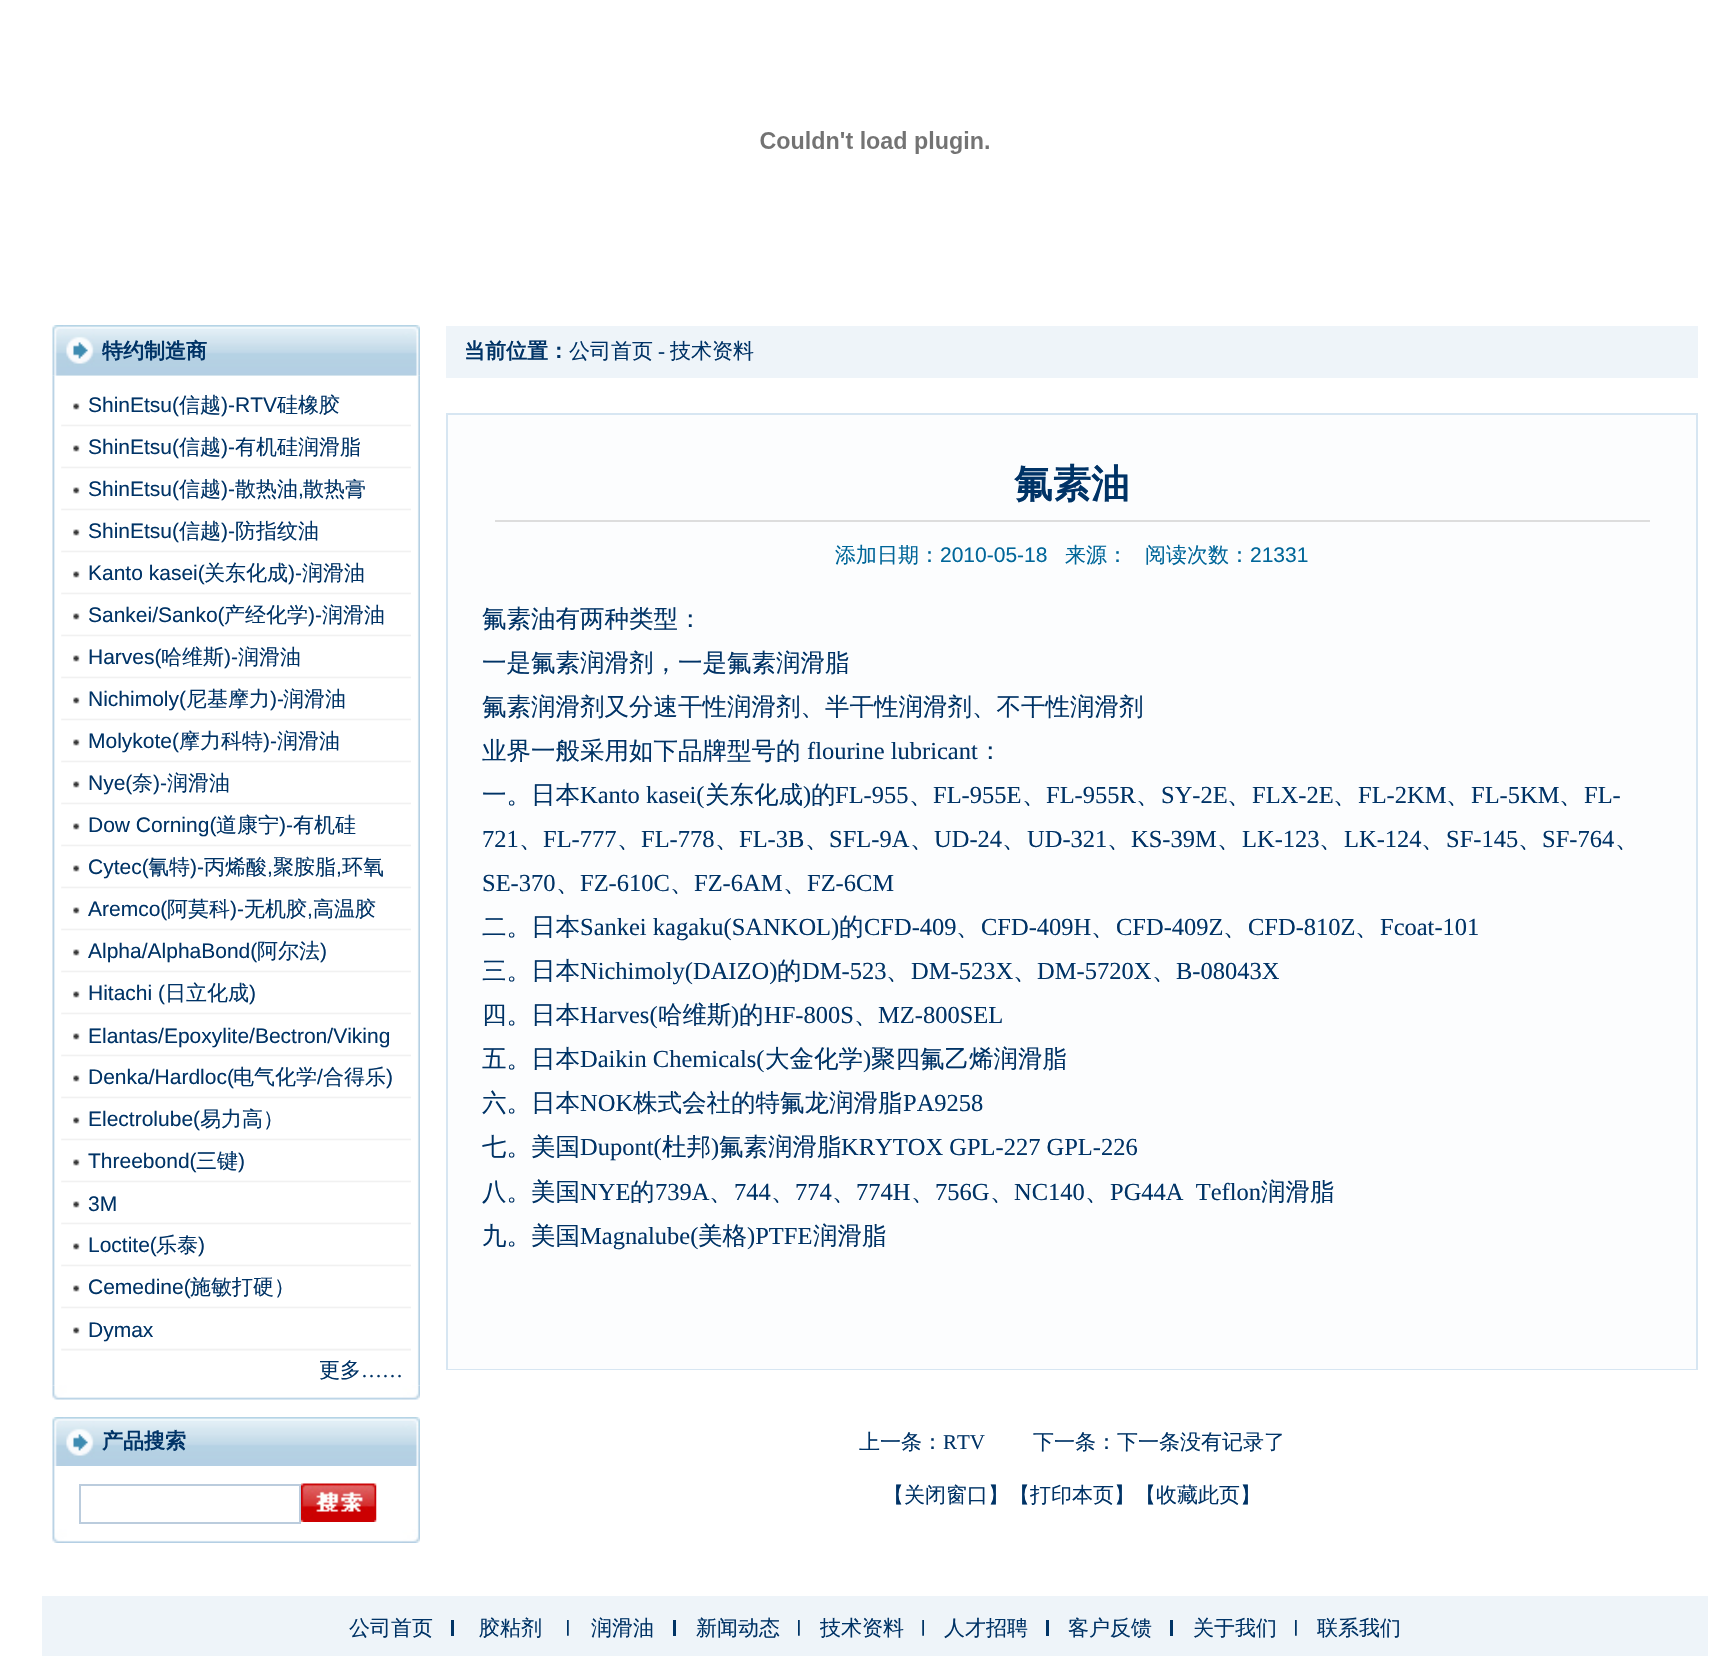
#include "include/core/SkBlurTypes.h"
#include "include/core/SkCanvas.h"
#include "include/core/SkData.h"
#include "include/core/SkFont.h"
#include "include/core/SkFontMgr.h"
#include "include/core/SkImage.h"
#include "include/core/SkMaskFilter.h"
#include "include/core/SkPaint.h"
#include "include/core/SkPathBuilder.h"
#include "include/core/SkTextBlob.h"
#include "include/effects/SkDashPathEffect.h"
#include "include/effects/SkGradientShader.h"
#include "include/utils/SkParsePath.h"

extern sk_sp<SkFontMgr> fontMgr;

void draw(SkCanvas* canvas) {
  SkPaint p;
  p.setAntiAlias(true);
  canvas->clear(SK_ColorWHITE);
  canvas->drawImageRect(SkImages::DeferredFromEncodedData(SkData::MakeFromFileName("images/1.png")), SkRect::MakeLTRB(760, 131, 989, 154), SkSamplingOptions());
  canvas->drawImageRect(SkImages::DeferredFromEncodedData(SkData::MakeFromFileName("images/2.png")), SkRect::MakeLTRB(52, 325, 420, 376), SkSamplingOptions());
  canvas->drawImageRect(SkImages::DeferredFromEncodedData(SkData::MakeFromFileName("images/3.png")), SkRect::MakeLTRB(52, 375, 420, 1386), SkSamplingOptions());
  canvas->drawImageRect(SkImages::DeferredFromEncodedData(SkData::MakeFromFileName("images/4.png")), SkRect::MakeLTRB(61, 403, 411, 427), SkSamplingOptions());
  canvas->drawImageRect(SkImages::DeferredFromEncodedData(SkData::MakeFromFileName("images/5.png")), SkRect::MakeLTRB(61, 426, 411, 469), SkSamplingOptions());
  canvas->drawImageRect(SkImages::DeferredFromEncodedData(SkData::MakeFromFileName("images/5.png")), SkRect::MakeLTRB(61, 468, 411, 511), SkSamplingOptions());
  canvas->drawImageRect(SkImages::DeferredFromEncodedData(SkData::MakeFromFileName("images/5.png")), SkRect::MakeLTRB(61, 510, 411, 553), SkSamplingOptions());
  canvas->drawImageRect(SkImages::DeferredFromEncodedData(SkData::MakeFromFileName("images/5.png")), SkRect::MakeLTRB(61, 552, 411, 595), SkSamplingOptions());
  canvas->drawImageRect(SkImages::DeferredFromEncodedData(SkData::MakeFromFileName("images/5.png")), SkRect::MakeLTRB(61, 594, 411, 637), SkSamplingOptions());
  canvas->drawImageRect(SkImages::DeferredFromEncodedData(SkData::MakeFromFileName("images/5.png")), SkRect::MakeLTRB(61, 636, 411, 679), SkSamplingOptions());
  canvas->drawImageRect(SkImages::DeferredFromEncodedData(SkData::MakeFromFileName("images/5.png")), SkRect::MakeLTRB(61, 678, 411, 721), SkSamplingOptions());
  canvas->drawImageRect(SkImages::DeferredFromEncodedData(SkData::MakeFromFileName("images/5.png")), SkRect::MakeLTRB(61, 720, 411, 763), SkSamplingOptions());
  canvas->drawImageRect(SkImages::DeferredFromEncodedData(SkData::MakeFromFileName("images/5.png")), SkRect::MakeLTRB(61, 762, 411, 805), SkSamplingOptions());
  canvas->drawImageRect(SkImages::DeferredFromEncodedData(SkData::MakeFromFileName("images/5.png")), SkRect::MakeLTRB(61, 804, 411, 847), SkSamplingOptions());
  canvas->drawImageRect(SkImages::DeferredFromEncodedData(SkData::MakeFromFileName("images/5.png")), SkRect::MakeLTRB(61, 846, 411, 889), SkSamplingOptions());
  canvas->drawImageRect(SkImages::DeferredFromEncodedData(SkData::MakeFromFileName("images/5.png")), SkRect::MakeLTRB(61, 888, 411, 931), SkSamplingOptions());
  canvas->drawImageRect(SkImages::DeferredFromEncodedData(SkData::MakeFromFileName("images/5.png")), SkRect::MakeLTRB(61, 930, 411, 973), SkSamplingOptions());
  canvas->drawImageRect(SkImages::DeferredFromEncodedData(SkData::MakeFromFileName("images/5.png")), SkRect::MakeLTRB(61, 972, 411, 1015), SkSamplingOptions());
  canvas->drawImageRect(SkImages::DeferredFromEncodedData(SkData::MakeFromFileName("images/5.png")), SkRect::MakeLTRB(61, 1014, 411, 1057), SkSamplingOptions());
  canvas->drawImageRect(SkImages::DeferredFromEncodedData(SkData::MakeFromFileName("images/5.png")), SkRect::MakeLTRB(61, 1056, 411, 1099), SkSamplingOptions());
  canvas->drawImageRect(SkImages::DeferredFromEncodedData(SkData::MakeFromFileName("images/5.png")), SkRect::MakeLTRB(61, 1098, 411, 1141), SkSamplingOptions());
  canvas->drawImageRect(SkImages::DeferredFromEncodedData(SkData::MakeFromFileName("images/5.png")), SkRect::MakeLTRB(61, 1140, 411, 1183), SkSamplingOptions());
  canvas->drawImageRect(SkImages::DeferredFromEncodedData(SkData::MakeFromFileName("images/5.png")), SkRect::MakeLTRB(61, 1182, 411, 1225), SkSamplingOptions());
  canvas->drawImageRect(SkImages::DeferredFromEncodedData(SkData::MakeFromFileName("images/5.png")), SkRect::MakeLTRB(61, 1224, 411, 1267), SkSamplingOptions());
  canvas->drawImageRect(SkImages::DeferredFromEncodedData(SkData::MakeFromFileName("images/5.png")), SkRect::MakeLTRB(61, 1266, 411, 1309), SkSamplingOptions());
  canvas->drawImageRect(SkImages::DeferredFromEncodedData(SkData::MakeFromFileName("images/5.png")), SkRect::MakeLTRB(61, 1308, 411, 1351), SkSamplingOptions());
  canvas->drawImageRect(SkImages::DeferredFromEncodedData(SkData::MakeFromFileName("images/6.png")), SkRect::MakeLTRB(52, 1385, 420, 1400), SkSamplingOptions());
  canvas->drawImageRect(SkImages::DeferredFromEncodedData(SkData::MakeFromFileName("images/7.png")), SkRect::MakeLTRB(52, 1417, 420, 1466), SkSamplingOptions());
  canvas->drawImageRect(SkImages::DeferredFromEncodedData(SkData::MakeFromFileName("images/8.png")), SkRect::MakeLTRB(52, 1466, 420, 1529), SkSamplingOptions());
  p.setStyle(SkPaint::kStroke_Style);
  p.setStrokeWidth(2);
  p.setColor(SkColorSetRGB(187, 204, 221));
  canvas->drawRect(SkRect::MakeLTRB(80, 1485, 300, 1523), p);
  canvas->drawImageRect(SkImages::DeferredFromEncodedData(SkData::MakeFromFileName("images/9.png")), SkRect::MakeLTRB(301, 1483, 377, 1522), SkSamplingOptions());
  canvas->drawImageRect(SkImages::DeferredFromEncodedData(SkData::MakeFromFileName("images/10.png")), SkRect::MakeLTRB(52, 1529, 420, 1543), SkSamplingOptions());
  p.setStyle(SkPaint::kFill_Style);
  p.setColor(SkColorSetRGB(238, 244, 249));
  canvas->drawRect(SkRect::MakeLTRB(446, 326, 1698, 378), p);
  p.setColor(SkColorSetRGB(215, 230, 242));
  canvas->drawRect(SkRect::MakeLTRB(446, 413, 1698, 1370), p);
  p.setColor(SkColorSetRGB(252, 253, 254));
  canvas->drawRect(SkRect::MakeLTRB(448, 415, 1696, 1369), p);
  p.setColor(SkColorSetRGB(221, 221, 221));
  canvas->drawRect(SkRect::MakeLTRB(495, 520, 1650, 522), p);
  p.setColor(SkColorSetRGB(238, 244, 249));
  canvas->drawRect(SkRect::MakeLTRB(42, 1596, 1708, 1656), p);
  p.setColor(SkColorSetRGB(0, 52, 102));
  canvas->drawRect(SkRect::MakeLTRB(451, 1620, 454, 1636), p);
  canvas->drawImageRect(SkImages::DeferredFromEncodedData(SkData::MakeFromFileName("images/11.png")), SkRect::MakeLTRB(567, 1620, 569, 1636), SkSamplingOptions());
  canvas->drawRect(SkRect::MakeLTRB(673, 1620, 676, 1636), p);
  canvas->drawImageRect(SkImages::DeferredFromEncodedData(SkData::MakeFromFileName("images/11.png")), SkRect::MakeLTRB(798, 1620, 800, 1636), SkSamplingOptions());
  canvas->drawImageRect(SkImages::DeferredFromEncodedData(SkData::MakeFromFileName("images/12.png")), SkRect::MakeLTRB(922, 1620, 924, 1636), SkSamplingOptions());
  canvas->drawRect(SkRect::MakeLTRB(1046, 1620, 1049, 1636), p);
  canvas->drawRect(SkRect::MakeLTRB(1170, 1620, 1173, 1636), p);
  canvas->drawImageRect(SkImages::DeferredFromEncodedData(SkData::MakeFromFileName("images/11.png")), SkRect::MakeLTRB(1295, 1620, 1297, 1636), SkSamplingOptions());
  SkFont font1(fontMgr->matchFamilyStyle("WenQuanYi Zen Hei", SkFontStyle::Bold()), 21);
  font1.setSubpixel(true);
  p.setColor(SkColorSetRGB(0, 51, 102));
  canvas->drawString("特约制造商", 102, 358, font1, p);
  SkFont font2(fontMgr->matchFamilyStyle("Liberation Sans", SkFontStyle::Normal()), 21);
  font2.setSubpixel(true);
  canvas->drawString("ShinEtsu(", 88, 412, font2, p);
  SkFont font3(fontMgr->matchFamilyStyle("WenQuanYi Zen Hei", SkFontStyle(500, SkFontStyle::kNormal_Width, SkFontStyle::kUpright_Slant)), 21);
  font3.setSubpixel(true);
  canvas->drawString("信越", 179, 412, font3, p);
  canvas->drawString(")-RTV", 221, 412, font2, p);
  canvas->drawString("硅橡胶", 277, 412, font3, p);
  canvas->drawString("ShinEtsu(", 88, 454, font2, p);
  canvas->drawString("信越", 179, 454, font3, p);
  canvas->drawString(")-", 221, 454, font2, p);
  canvas->drawString("有机硅润滑脂", 235, 454, font3, p);
  canvas->drawString("ShinEtsu(", 88, 496, font2, p);
  canvas->drawString("信越", 179, 496, font3, p);
  canvas->drawString(")-", 221, 496, font2, p);
  canvas->drawString("散热油", 235, 496, font3, p);
  canvas->drawString(",", 298, 496, font2, p);
  canvas->drawString("散热膏", 303, 496, font3, p);
  canvas->drawString("ShinEtsu(", 88, 538, font2, p);
  canvas->drawString("信越", 179, 538, font3, p);
  canvas->drawString(")-", 221, 538, font2, p);
  canvas->drawString("防指纹油", 235, 538, font3, p);
  canvas->drawString("Kanto kasei(", 88, 580, font2, p);
  canvas->drawString("关东化成", 204, 580, font3, p);
  canvas->drawString(")-", 288, 580, font2, p);
  canvas->drawString("润滑油", 302, 580, font3, p);
  canvas->drawString("Sankei/Sanko(", 88, 622, font2, p);
  canvas->drawString("产经化学", 224, 622, font3, p);
  canvas->drawString(")-", 308, 622, font2, p);
  canvas->drawString("润滑油", 322, 622, font3, p);
  canvas->drawString("Harves(", 88, 664, font2, p);
  canvas->drawString("哈维斯", 161, 664, font3, p);
  canvas->drawString(")-", 224, 664, font2, p);
  canvas->drawString("润滑油", 238, 664, font3, p);
  canvas->drawString("Nichimoly(", 88, 706, font2, p);
  canvas->drawString("尼基摩力", 186, 706, font3, p);
  canvas->drawString(")-", 270, 706, font2, p);
  canvas->drawString("润滑油", 283, 706, font3, p);
  canvas->drawString("Molykote(", 88, 748, font2, p);
  canvas->drawString("摩力科特", 179, 748, font3, p);
  canvas->drawString(")-", 263, 748, font2, p);
  canvas->drawString("润滑油", 277, 748, font3, p);
  canvas->drawString("Nye(", 88, 790, font2, p);
  canvas->drawString("奈", 132, 790, font3, p);
  canvas->drawString(")-", 153, 790, font2, p);
  canvas->drawString("润滑油", 167, 790, font3, p);
  canvas->drawString("Dow Corning(", 88, 832, font2, p);
  canvas->drawString("道康宁", 216, 832, font3, p);
  canvas->drawString(")-", 279, 832, font2, p);
  canvas->drawString("有机硅", 293, 832, font3, p);
  canvas->drawString("Cytec(", 88, 874, font2, p);
  canvas->drawString("氰特", 148, 874, font3, p);
  canvas->drawString(")-", 190, 874, font2, p);
  canvas->drawString("丙烯酸", 204, 874, font3, p);
  canvas->drawString(",", 267, 874, font2, p);
  canvas->drawString("聚胺脂", 273, 874, font3, p);
  canvas->drawString(",", 336, 874, font2, p);
  canvas->drawString("环氧", 342, 874, font3, p);
  canvas->drawString("Aremco(", 88, 916, font2, p);
  canvas->drawString("阿莫科", 167, 916, font3, p);
  canvas->drawString(")-", 230, 916, font2, p);
  canvas->drawString("无机胶", 244, 916, font3, p);
  canvas->drawString(",", 307, 916, font2, p);
  canvas->drawString("高温胶", 313, 916, font3, p);
  canvas->drawString("Alpha/AlphaBond(", 88, 958, font2, p);
  canvas->drawString("阿尔法", 257, 958, font3, p);
  canvas->drawString(")", 320, 958, font2, p);
  canvas->drawString("Hitachi (", 88, 1000, font2, p);
  canvas->drawString("日立化成", 165, 1000, font3, p);
  canvas->drawString(")", 249, 1000, font2, p);
  canvas->drawString("Elantas/Epoxylite/Bectron/Viking", 88, 1043, font2, p);
  canvas->drawString("Denka/Hardloc(", 88, 1084, font2, p);
  canvas->drawString("电气化学", 233, 1084, font3, p);
  canvas->drawString("/", 317, 1084, font2, p);
  canvas->drawString("合得乐", 323, 1084, font3, p);
  canvas->drawString(")", 386, 1084, font2, p);
  canvas->drawString("Electrolube(", 88, 1126, font2, p);
  canvas->drawString("易力高）", 200, 1126, font3, p);
  canvas->drawString("Threebond(", 88, 1168, font2, p);
  canvas->drawString("三键", 196, 1168, font3, p);
  canvas->drawString(")", 238, 1168, font2, p);
  canvas->drawString("3M", 88, 1211, font2, p);
  canvas->drawString("Loctite(", 88, 1252, font2, p);
  canvas->drawString("乐泰", 156, 1252, font3, p);
  canvas->drawString(")", 198, 1252, font2, p);
  canvas->drawString("Cemedine(", 88, 1294, font2, p);
  canvas->drawString("施敏打硬）", 190, 1294, font3, p);
  canvas->drawString("Dymax", 88, 1337, font2, p);
  canvas->drawString("更多", 319, 1377, font3, p);
  SkFont font4(fontMgr->matchFamilyStyle("Liberation Serif", SkFontStyle::Normal()), 21);
  font4.setSubpixel(true);
  canvas->drawString("……", 361, 1377, font4, p);
  canvas->drawString("产品搜索", 102, 1448, font1, p);
  canvas->drawString("当前位置：", 464, 358, font1, p);
  canvas->drawString("公司首页", 569, 358, font3, p);
  canvas->drawString("-", 658, 358, font4, p);
  canvas->drawString("技术资料", 670, 358, font3, p);
  SkFont font5(fontMgr->matchFamilyStyle("WenQuanYi Zen Hei", SkFontStyle::Bold()), 38.5f);
  font5.setSubpixel(true);
  canvas->drawString("氟素油", 1014, 497, font5, p);
  p.setColor(SkColorSetRGB(0, 102, 153));
  canvas->drawString("添加日期：", 835, 562, font3, p);
  canvas->drawString("2010-05-18", 940, 562, font2, p);
  canvas->drawString("来源：", 1065, 562, font3, p);
  canvas->drawString("阅读次数：", 1145, 562, font3, p);
  canvas->drawString("21331", 1250, 562, font2, p);
  SkFont font6(fontMgr->matchFamilyStyle("WenQuanYi Zen Hei", SkFontStyle(500, SkFontStyle::kNormal_Width, SkFontStyle::kUpright_Slant)), 24.5f);
  font6.setSubpixel(true);
  p.setColor(SkColorSetRGB(0, 51, 102));
  canvas->drawString("氟素油有两种类型：", 482, 627, font6, p);
  canvas->drawString("一是氟素润滑剂，一是氟素润滑脂", 482, 671, font6, p);
  canvas->drawString("氟素润滑剂又分速干性润滑剂、半干性润滑剂、不干性润滑剂", 482, 715, font6, p);
  canvas->drawString("业界一般采用如下品牌型号的", 482, 759, font6, p);
  SkFont font7(fontMgr->matchFamilyStyle("Liberation Serif", SkFontStyle::Normal()), 24.5f);
  font7.setSubpixel(true);
  canvas->drawString("flourine lubricant", 807, 759, font7, p);
  canvas->drawString("：", 978, 759, font6, p);
  canvas->drawString("一。日本", 482, 803, font6, p);
  canvas->drawString("Kanto kasei(", 580, 803, font7, p);
  canvas->drawString("关东化成", 705, 803, font6, p);
  canvas->drawString(")", 803, 803, font7, p);
  canvas->drawString("的", 811, 803, font6, p);
  canvas->drawString("FL-955", 835, 803, font7, p);
  canvas->drawString("FL-955E", 933, 803, font7, p);
  canvas->drawString("FL-955R", 1046, 803, font7, p);
  canvas->drawString("SY-2E", 1161, 803, font7, p);
  canvas->drawString("FLX-2E", 1252, 803, font7, p);
  canvas->drawString("FL-2KM", 1358, 803, font7, p);
  canvas->drawString("FL-5KM", 1471, 803, font7, p);
  canvas->drawString("FL-", 1584, 803, font7, p);
  canvas->drawString("、", 909, 803, font6, p);
  canvas->drawString("、", 1022, 803, font6, p);
  canvas->drawString("、", 1136, 803, font6, p);
  canvas->drawString("、", 1227, 803, font6, p);
  canvas->drawString("、", 1333, 803, font6, p);
  canvas->drawString("、", 1446, 803, font6, p);
  canvas->drawString("、", 1559, 803, font6, p);
  canvas->drawString("721", 482, 847, font7, p);
  canvas->drawString("、", 519, 847, font6, p);
  canvas->drawString("FL-777", 543, 847, font7, p);
  canvas->drawString("、", 617, 847, font6, p);
  canvas->drawString("FL-778", 641, 847, font7, p);
  canvas->drawString("、", 715, 847, font6, p);
  canvas->drawString("FL-3B", 739, 847, font7, p);
  canvas->drawString("、", 805, 847, font6, p);
  canvas->drawString("SFL-9A", 829, 847, font7, p);
  canvas->drawString("、", 910, 847, font6, p);
  canvas->drawString("UD-24", 934, 847, font7, p);
  canvas->drawString("、", 1002, 847, font6, p);
  canvas->drawString("UD-321", 1027, 847, font7, p);
  canvas->drawString("、", 1107, 847, font6, p);
  canvas->drawString("KS-39M", 1131, 847, font7, p);
  canvas->drawString("、", 1217, 847, font6, p);
  canvas->drawString("LK-123", 1242, 847, font7, p);
  canvas->drawString("、", 1319, 847, font6, p);
  canvas->drawString("LK-124", 1344, 847, font7, p);
  canvas->drawString("、", 1421, 847, font6, p);
  canvas->drawString("SF-145", 1446, 847, font7, p);
  canvas->drawString("、", 1518, 847, font6, p);
  canvas->drawString("SF-764", 1542, 847, font7, p);
  canvas->drawString("、", 1615, 847, font6, p);
  canvas->drawString("SE-370", 482, 891, font7, p);
  canvas->drawString("、", 556, 891, font6, p);
  canvas->drawString("FZ-610C", 580, 891, font7, p);
  canvas->drawString("、", 670, 891, font6, p);
  canvas->drawString("FZ-6AM", 694, 891, font7, p);
  canvas->drawString("、", 783, 891, font6, p);
  canvas->drawString("FZ-6CM", 807, 891, font7, p);
  canvas->drawString("二。日本", 482, 935, font6, p);
  canvas->drawString("Sankei kagaku(SANKOL)", 580, 935, font7, p);
  canvas->drawString("的", 839, 935, font6, p);
  canvas->drawString("CFD-409", 864, 935, font7, p);
  canvas->drawString("、", 956, 935, font6, p);
  canvas->drawString("CFD-409H", 981, 935, font7, p);
  canvas->drawString("、", 1091, 935, font6, p);
  canvas->drawString("CFD-409Z", 1116, 935, font7, p);
  canvas->drawString("、", 1223, 935, font6, p);
  canvas->drawString("CFD-810Z", 1248, 935, font7, p);
  canvas->drawString("、", 1355, 935, font6, p);
  canvas->drawString("Fcoat-101", 1380, 935, font7, p);
  canvas->drawString("三。日本", 482, 979, font6, p);
  canvas->drawString("Nichimoly(DAIZO)", 580, 979, font7, p);
  canvas->drawString("的", 777, 979, font6, p);
  canvas->drawString("DM-523", 802, 979, font7, p);
  canvas->drawString("、", 886, 979, font6, p);
  canvas->drawString("DM-523X", 911, 979, font7, p);
  canvas->drawString("、", 1013, 979, font6, p);
  canvas->drawString("DM-5720X", 1037, 979, font7, p);
  canvas->drawString("、", 1152, 979, font6, p);
  canvas->drawString("B-08043X", 1176, 979, font7, p);
  canvas->drawString("四。日本", 482, 1023, font6, p);
  canvas->drawString("Harves(", 580, 1023, font7, p);
  canvas->drawString("哈维斯", 658, 1023, font6, p);
  canvas->drawString(")", 731, 1023, font7, p);
  canvas->drawString("的", 739, 1023, font6, p);
  canvas->drawString("HF-800S", 764, 1023, font7, p);
  canvas->drawString("、", 854, 1023, font6, p);
  canvas->drawString("MZ-800SEL", 878, 1023, font7, p);
  canvas->drawString("五。日本", 482, 1067, font6, p);
  canvas->drawString("Daikin Chemicals(", 580, 1067, font7, p);
  canvas->drawString("大金化学", 765, 1067, font6, p);
  canvas->drawString(")", 863, 1067, font7, p);
  canvas->drawString("聚四氟乙烯润滑脂", 871, 1067, font6, p);
  canvas->drawString("六。日本", 482, 1111, font6, p);
  canvas->drawString("NOK", 580, 1111, font7, p);
  canvas->drawString("株式会社的特氟龙润滑脂", 633, 1111, font6, p);
  canvas->drawString("PA9258", 903, 1111, font7, p);
  canvas->drawString("七。美国", 482, 1155, font6, p);
  canvas->drawString("Dupont(", 580, 1155, font7, p);
  canvas->drawString("杜邦", 662, 1155, font6, p);
  canvas->drawString(")", 711, 1155, font7, p);
  canvas->drawString("氟素润滑脂", 719, 1155, font6, p);
  canvas->drawString("KRYTOX GPL-227 GPL-226", 841, 1155, font7, p);
  canvas->drawString("八。美国", 482, 1200, font6, p);
  canvas->drawString("NYE", 580, 1200, font7, p);
  canvas->drawString("的", 630, 1200, font6, p);
  canvas->drawString("739A", 655, 1200, font7, p);
  canvas->drawString("、", 709, 1200, font6, p);
  canvas->drawString("744", 734, 1200, font7, p);
  canvas->drawString("、", 771, 1200, font6, p);
  canvas->drawString("774", 795, 1200, font7, p);
  canvas->drawString("、", 832, 1200, font6, p);
  canvas->drawString("774H", 856, 1200, font7, p);
  canvas->drawString("、", 911, 1200, font6, p);
  canvas->drawString("756G", 935, 1200, font7, p);
  canvas->drawString("、", 990, 1200, font6, p);
  canvas->drawString("NC140", 1014, 1200, font7, p);
  canvas->drawString("、", 1085, 1200, font6, p);
  canvas->drawString("PG44A  Teflon", 1110, 1200, font7, p);
  canvas->drawString("润滑脂", 1261, 1200, font6, p);
  canvas->drawString("九。美国", 482, 1244, font6, p);
  canvas->drawString("Magnalube(", 580, 1244, font7, p);
  canvas->drawString("美格", 698, 1244, font6, p);
  canvas->drawString(")PTFE", 747, 1244, font7, p);
  canvas->drawString("润滑脂", 813, 1244, font6, p);
  canvas->drawString("上一条：", 859, 1449, font3, p);
  canvas->drawString("RTV", 943, 1449, font4, p);
  canvas->drawString("下一条：下一条没有记录了", 1033, 1449, font3, p);
  canvas->drawString("【关闭窗口】【打印本页】【收藏此页】", 883, 1502, font3, p);
  canvas->drawString("公司首页", 349, 1635, font3, p);
  canvas->drawString("胶粘剂", 479, 1635, font3, p);
  canvas->drawString("润滑油", 591, 1635, font3, p);
  canvas->drawString("新闻动态", 696, 1635, font3, p);
  canvas->drawString("技术资料", 820, 1635, font3, p);
  canvas->drawString("人才招聘", 944, 1635, font3, p);
  canvas->drawString("客户反馈", 1068, 1635, font3, p);
  canvas->drawString("关于我们", 1193, 1635, font3, p);
  canvas->drawString("联系我们", 1317, 1635, font3, p);
}
